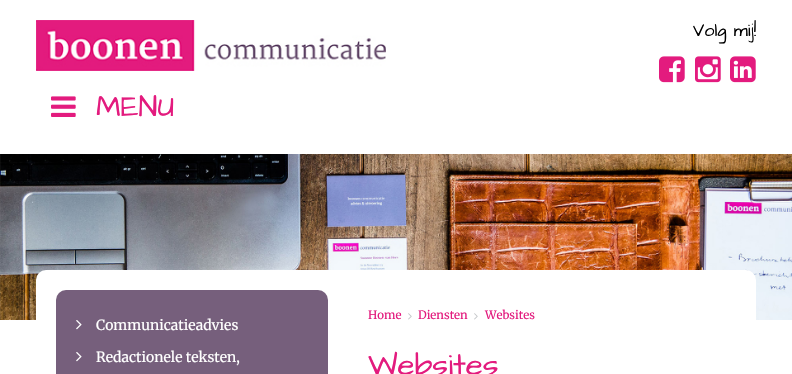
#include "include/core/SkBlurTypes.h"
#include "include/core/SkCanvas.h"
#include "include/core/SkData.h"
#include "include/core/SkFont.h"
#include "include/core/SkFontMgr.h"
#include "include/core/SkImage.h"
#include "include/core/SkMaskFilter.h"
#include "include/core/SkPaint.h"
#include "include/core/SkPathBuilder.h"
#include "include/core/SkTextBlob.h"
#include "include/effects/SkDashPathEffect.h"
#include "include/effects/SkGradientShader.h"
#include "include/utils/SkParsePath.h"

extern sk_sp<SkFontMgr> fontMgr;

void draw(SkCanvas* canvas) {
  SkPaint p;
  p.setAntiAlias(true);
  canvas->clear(SK_ColorWHITE);
  canvas->drawImageRect(SkImages::DeferredFromEncodedData(SkData::MakeFromFileName("images/1.png")), SkRect::MakeLTRB(36, 20, 386, 71), SkSamplingOptions());
  canvas->drawImageRect(SkImages::DeferredFromEncodedData(SkData::MakeFromFileName("images/2.png")), SkRect::MakeLTRB(659, 56, 685, 83), SkSamplingOptions());
  canvas->drawImageRect(SkImages::DeferredFromEncodedData(SkData::MakeFromFileName("images/3.png")), SkRect::MakeLTRB(695, 56, 721, 83), SkSamplingOptions());
  canvas->drawImageRect(SkImages::DeferredFromEncodedData(SkData::MakeFromFileName("images/4.png")), SkRect::MakeLTRB(730, 56, 756, 83), SkSamplingOptions());
  canvas->drawImageRect(SkImages::DeferredFromEncodedData(SkData::MakeFromFileName("images/5.png")), SkRect::MakeLTRB(51, 96, 76, 117), SkSamplingOptions());
  canvas->drawImageRect(SkImages::DeferredFromEncodedData(SkData::MakeFromFileName("images/6.png")), SkRect::MakeLTRB(0, 154, 792, 320), SkSamplingOptions());
  p.setColor(SK_ColorWHITE);
  canvas->drawRoundRect(SkRect::MakeLTRB(36, 270, 756, 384), 10, 10, p);
  p.setColor(SkColorSetRGB(118, 95, 124));
  canvas->drawRoundRect(SkRect::MakeLTRB(56, 290, 328, 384), 10, 10, p);
  canvas->drawImageRect(SkImages::DeferredFromEncodedData(SkData::MakeFromFileName("images/7.png")), SkRect::MakeLTRB(76, 320, 82, 330), SkSamplingOptions());
  canvas->drawImageRect(SkImages::DeferredFromEncodedData(SkData::MakeFromFileName("images/7.png")), SkRect::MakeLTRB(76, 352, 82, 362), SkSamplingOptions());
  canvas->drawImageRect(SkImages::DeferredFromEncodedData(SkData::MakeFromFileName("images/8.png")), SkRect::MakeLTRB(408, 313, 412, 320), SkSamplingOptions());
  canvas->drawImageRect(SkImages::DeferredFromEncodedData(SkData::MakeFromFileName("images/8.png")), SkRect::MakeLTRB(474, 313, 478, 320), SkSamplingOptions());
  SkFont font1(fontMgr->matchFamilyStyle("Architects Daughter", SkFontStyle::Normal()), 18);
  font1.setSubpixel(true);
  p.setColor(SK_ColorBLACK);
  canvas->drawString("Volg mij!", 693, 36, font1, p);
  SkFont font2(fontMgr->matchFamilyStyle("Architects Daughter", SkFontStyle::Normal()), 30);
  font2.setSubpixel(true);
  p.setColor(SkColorSetRGB(227, 27, 126));
  canvas->drawString("MENU", 96, 116, font2, p);
  SkFont font3(fontMgr->matchFamilyStyle("Merriweather", SkFontStyle::Normal()), 14);
  font3.setSubpixel(true);
  p.setColor(SK_ColorWHITE);
  canvas->drawString("Communicatieadvies", 96, 330, font3, p);
  canvas->drawString("Redactionele teksten,", 96, 362, font3, p);
  SkFont font4(fontMgr->matchFamilyStyle("Merriweather", SkFontStyle::Normal()), 11.5f);
  font4.setSubpixel(true);
  p.setColor(SkColorSetRGB(227, 27, 126));
  canvas->drawString("Home", 368, 319, font4, p);
  canvas->drawString("Diensten", 418, 319, font4, p);
  canvas->drawString("Websites", 485, 319, font4, p);
  SkFont font5(fontMgr->matchFamilyStyle("Architects Daughter", SkFontStyle::Normal()), 31.5f);
  font5.setSubpixel(true);
  canvas->drawString("Websites", 368, 375, font5, p);
}
